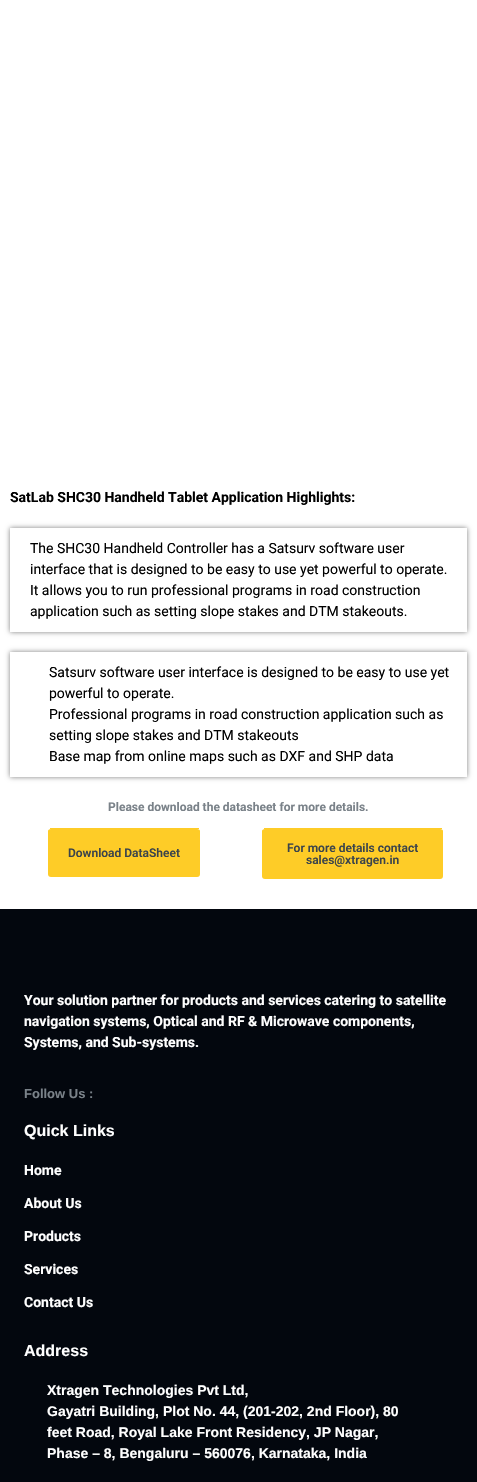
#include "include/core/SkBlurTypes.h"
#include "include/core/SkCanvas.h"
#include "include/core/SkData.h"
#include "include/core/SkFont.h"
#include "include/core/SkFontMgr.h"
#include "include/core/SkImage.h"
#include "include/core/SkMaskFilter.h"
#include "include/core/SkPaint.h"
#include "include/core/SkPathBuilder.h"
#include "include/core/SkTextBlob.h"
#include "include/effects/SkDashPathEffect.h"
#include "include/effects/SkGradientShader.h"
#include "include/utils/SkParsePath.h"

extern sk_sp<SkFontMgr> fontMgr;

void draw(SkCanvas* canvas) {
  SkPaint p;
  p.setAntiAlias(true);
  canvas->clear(SK_ColorWHITE);
  canvas->save();
  canvas->clipPath(SkPathBuilder(SkPathFillType::kEvenOdd).moveTo(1, 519).lineTo(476, 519).lineTo(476, 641).lineTo(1, 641).close().moveTo(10, 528).lineTo(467, 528).lineTo(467, 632).lineTo(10, 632).close().detach(), true);
  p.setColor(SkColorSetARGB(128, 0, 0, 0));
  p.setMaskFilter(SkMaskFilter::MakeBlur(kNormal_SkBlurStyle, 2.5f));
  canvas->drawRect(SkRect::MakeLTRB(10, 528, 467, 632), p);
  p.setMaskFilter(nullptr);
  canvas->restore();
  canvas->save();
  canvas->clipPath(SkPathBuilder(SkPathFillType::kEvenOdd).moveTo(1, 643).lineTo(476, 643).lineTo(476, 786).lineTo(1, 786).close().moveTo(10, 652).lineTo(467, 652).lineTo(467, 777).lineTo(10, 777).close().detach(), true);
  p.setMaskFilter(SkMaskFilter::MakeBlur(kNormal_SkBlurStyle, 2.5f));
  canvas->drawRect(SkRect::MakeLTRB(10, 652, 467, 777), p);
  p.setMaskFilter(nullptr);
  canvas->restore();
  p.setColor(SkColorSetRGB(254, 204, 39));
  canvas->drawPath(SkPathBuilder().moveTo(51, 829).lineTo(197, 829).cubicTo(199, 829, 200, 830, 200, 831).lineTo(200, 874).cubicTo(200, 876, 199, 877, 197, 877).lineTo(51, 877).cubicTo(49, 877, 48, 876, 48, 874).lineTo(48, 831).cubicTo(48, 830, 49, 829, 51, 829).close().detach(), p);
  canvas->drawRect(SkRect::MakeLTRB(50, 828, 199, 829), p);
  canvas->drawPath(SkPathBuilder().moveTo(265, 829).lineTo(440, 829).cubicTo(442, 829, 443, 830, 443, 831).lineTo(443, 876).cubicTo(443, 878, 442, 879, 440, 879).lineTo(265, 879).cubicTo(263, 879, 262, 878, 262, 876).lineTo(262, 831).cubicTo(262, 830, 263, 829, 265, 829).close().detach(), p);
  canvas->drawRect(SkRect::MakeLTRB(264, 828, 442, 829), p);
  p.setColor(SkColorSetRGB(3, 7, 14));
  canvas->drawRect(SkRect::MakeLTRB(0, 909, 477, 1482), p);
  SkFont font1(fontMgr->matchFamilyStyle("Roboto", SkFontStyle::Bold()), 14);
  font1.setSubpixel(true);
  p.setColor(SK_ColorBLACK);
  canvas->drawString("SatLab SHC30 Handheld Tablet Application Highlights:", 10, 502, font1, p);
  SkFont font2(fontMgr->matchFamilyStyle("Roboto", SkFontStyle::Normal()), 14);
  font2.setSubpixel(true);
  canvas->drawString("The SHC30 Handheld Controller has a Satsurv software user", 30, 553, font2, p);
  canvas->drawString("interface that is designed to be easy to use yet powerful to operate.", 30, 574, font2, p);
  canvas->drawString("It allows you to run professional programs in road construction", 30, 595, font2, p);
  canvas->drawString("application such as setting slope stakes and DTM stakeouts.", 30, 616, font2, p);
  canvas->drawString("Satsurv software user interface is designed to be easy to use yet", 49, 677, font2, p);
  canvas->drawString("powerful to operate.", 49, 698, font2, p);
  canvas->drawString("Professional programs in road construction application such as", 49, 719, font2, p);
  canvas->drawString("setting slope stakes and DTM stakeouts", 49, 740, font2, p);
  canvas->drawString("Base map from online maps such as DXF and SHP data", 49, 761, font2, p);
  SkFont font3(fontMgr->matchFamilyStyle("Roboto", SkFontStyle::Bold()), 12);
  font3.setSubpixel(true);
  p.setColor(SkColorSetRGB(122, 130, 137));
  canvas->drawString("Please download the datasheet for more details.", 108, 811, font3, p);
  SkFont font4(fontMgr->matchFamilyStyle("Roboto", SkFontStyle(600, SkFontStyle::kNormal_Width, SkFontStyle::kUpright_Slant)), 12);
  font4.setSubpixel(true);
  p.setColor(SkColorSetRGB(59, 68, 75));
  canvas->drawString("Download DataSheet", 68, 857, font4, p);
  canvas->drawString("For more details contact", 287, 852, font4, p);
  canvas->drawString("sales@xtragen.in", 306, 864, font4, p);
  p.setColor(SK_ColorWHITE);
  canvas->drawString("Your solution partner for products and services catering to satellite", 24, 1005, font1, p);
  canvas->drawString("navigation systems, Optical and RF & Microwave components,", 24, 1026, font1, p);
  canvas->drawString("Systems, and Sub-systems.", 24, 1047, font1, p);
  SkFont font5(fontMgr->matchFamilyStyle("Liberation Sans", SkFontStyle::Bold()), 13);
  font5.setSubpixel(true);
  p.setColor(SkColorSetRGB(122, 130, 137));
  canvas->drawString("Follow Us :", 24, 1098, font5, p);
  SkFont font6(fontMgr->matchFamilyStyle("Liberation Sans", SkFontStyle::Bold()), 16);
  font6.setSubpixel(true);
  p.setColor(SK_ColorWHITE);
  canvas->drawString("Quick Links", 24, 1136, font6, p);
  canvas->drawString("Home", 24, 1175, font1, p);
  canvas->drawString("About Us", 24, 1208, font1, p);
  canvas->drawString("Products", 24, 1241, font1, p);
  canvas->drawString("Services", 24, 1274, font1, p);
  canvas->drawString("Contact Us", 24, 1307, font1, p);
  canvas->drawString("Address", 24, 1356, font6, p);
  SkFont font7(fontMgr->matchFamilyStyle("Liberation Sans", SkFontStyle::Bold()), 14);
  font7.setSubpixel(true);
  canvas->drawString("Xtragen Technologies Pvt Ltd,", 47, 1395, font7, p);
  canvas->drawString("Gayatri Building, Plot No. 44, (201-202, 2nd Floor), 80", 47, 1416, font7, p);
  canvas->drawString("feet Road, Royal Lake Front Residency, JP Nagar,", 47, 1437, font7, p);
  canvas->drawString("Phase – 8, Bengaluru – 560076, Karnataka, India", 47, 1458, font7, p);
}
